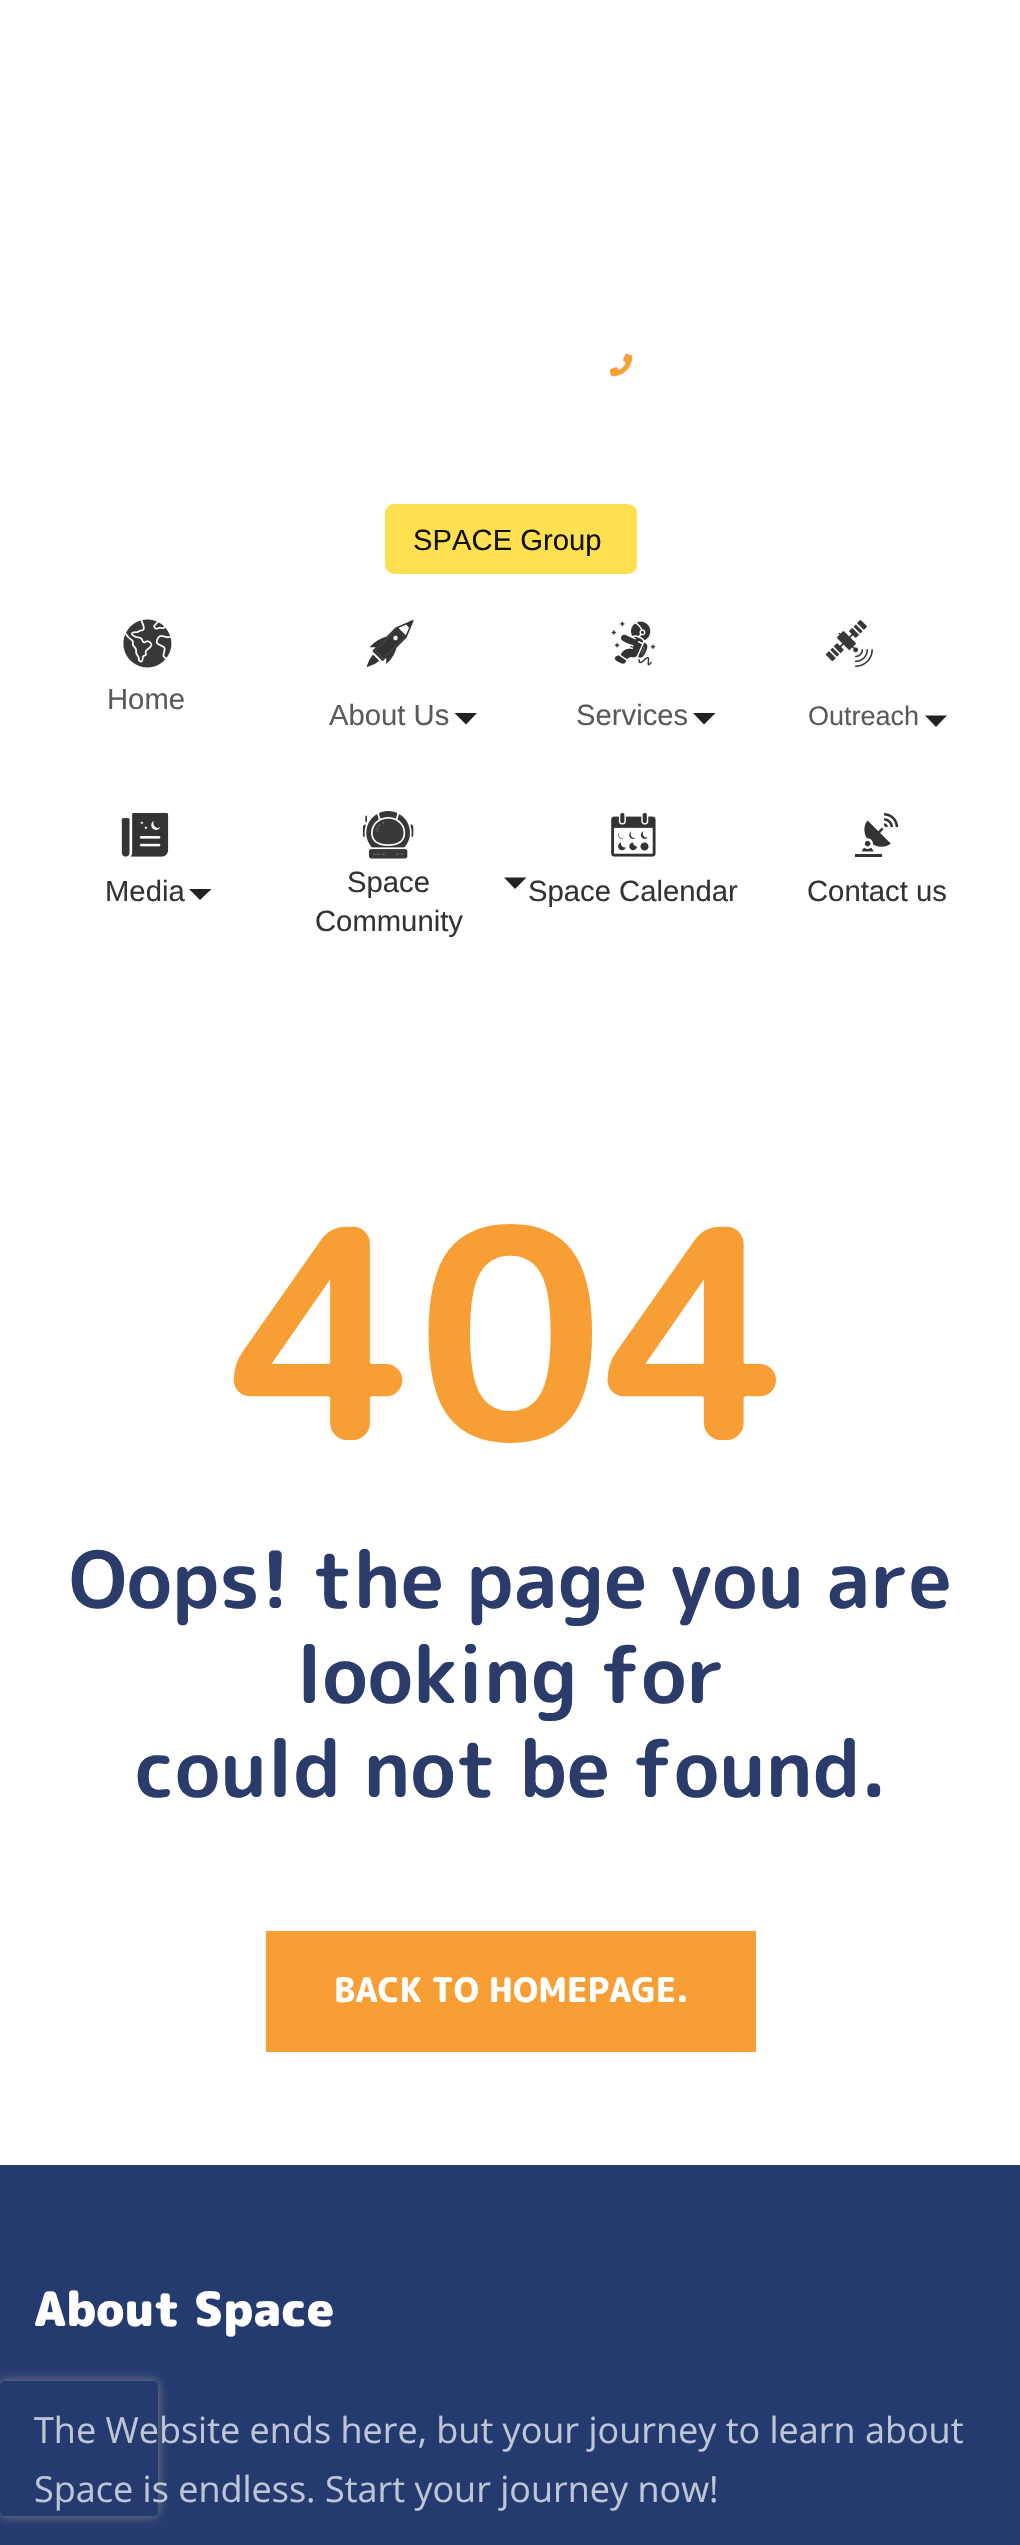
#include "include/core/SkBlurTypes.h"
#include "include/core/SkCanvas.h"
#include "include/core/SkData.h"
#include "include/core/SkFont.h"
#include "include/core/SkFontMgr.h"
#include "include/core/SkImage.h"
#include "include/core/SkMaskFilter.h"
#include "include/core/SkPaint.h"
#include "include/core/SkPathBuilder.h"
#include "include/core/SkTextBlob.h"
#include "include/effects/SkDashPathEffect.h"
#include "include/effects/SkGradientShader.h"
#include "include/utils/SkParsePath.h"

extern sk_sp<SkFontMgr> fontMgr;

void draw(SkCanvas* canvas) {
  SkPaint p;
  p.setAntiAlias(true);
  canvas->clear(SK_ColorWHITE);
  canvas->drawImageRect(SkImages::DeferredFromEncodedData(SkData::MakeFromFileName("images/1.png")), SkRect::MakeLTRB(609, 353, 633, 377), SkSamplingOptions());
  p.setColor(SkColorSetRGB(255, 224, 80));
  canvas->drawRoundRect(SkRect::MakeLTRB(385, 504, 637, 574), 9, 9, p);
  canvas->drawImageRect(SkImages::DeferredFromEncodedData(SkData::MakeFromFileName("images/2.png")), SkRect::MakeLTRB(123, 619, 172, 668), SkSamplingOptions());
  canvas->drawImageRect(SkImages::DeferredFromEncodedData(SkData::MakeFromFileName("images/3.png")), SkRect::MakeLTRB(367, 620, 414, 667), SkSamplingOptions());
  p.setColor(SkColorSetRGB(34, 34, 34));
  canvas->drawPath(SkPathBuilder().moveTo(454.5f, 713).lineTo(477, 713).lineTo(466, 724.5f).close().detach(), p);
  canvas->drawImageRect(SkImages::DeferredFromEncodedData(SkData::MakeFromFileName("images/4.png")), SkRect::MakeLTRB(611, 621, 656, 666), SkSamplingOptions());
  canvas->drawPath(SkPathBuilder().moveTo(693, 713).lineTo(715.5f, 713).lineTo(704, 724.5f).close().detach(), p);
  canvas->drawImageRect(SkImages::DeferredFromEncodedData(SkData::MakeFromFileName("images/5.png")), SkRect::MakeLTRB(825, 620, 873, 667), SkSamplingOptions());
  canvas->drawPath(SkPathBuilder().moveTo(925, 715.5f).lineTo(947, 715.5f).lineTo(936, 727).close().detach(), p);
  canvas->drawImageRect(SkImages::DeferredFromEncodedData(SkData::MakeFromFileName("images/6.png")), SkRect::MakeLTRB(121, 812, 169, 857), SkSamplingOptions());
  canvas->drawPath(SkPathBuilder().moveTo(189, 889).lineTo(211.5f, 889).lineTo(200, 900).close().detach(), p);
  canvas->drawImageRect(SkImages::DeferredFromEncodedData(SkData::MakeFromFileName("images/7.png")), SkRect::MakeLTRB(362, 811, 414, 859), SkSamplingOptions());
  canvas->drawPath(SkPathBuilder().moveTo(504, 877.5f).lineTo(526.5f, 877.5f).lineTo(515, 889).close().detach(), p);
  canvas->drawImageRect(SkImages::DeferredFromEncodedData(SkData::MakeFromFileName("images/8.png")), SkRect::MakeLTRB(611, 812, 656, 857), SkSamplingOptions());
  canvas->drawImageRect(SkImages::DeferredFromEncodedData(SkData::MakeFromFileName("images/9.png")), SkRect::MakeLTRB(855, 813, 899, 857), SkSamplingOptions());
  p.setColor(SkColorSetRGB(247, 159, 53));
  canvas->drawRect(SkRect::MakeLTRB(266, 1931, 756, 2052), p);
  p.setColor(SkColorSetRGB(37, 59, 112));
  canvas->drawRect(SkRect::MakeLTRB(0, 2165, 1020, 2545), p);
  canvas->save();
  canvas->clipPath(SkPathBuilder(SkPathFillType::kEvenOdd).moveTo(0, 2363).lineTo(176, 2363).lineTo(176, 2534).lineTo(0, 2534).close().moveTo(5, 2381).lineTo(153, 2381).cubicTo(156, 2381, 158, 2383, 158, 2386).lineTo(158, 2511).cubicTo(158, 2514, 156, 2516, 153, 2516).lineTo(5, 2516).cubicTo(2, 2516, 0, 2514, 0, 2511).lineTo(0, 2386).cubicTo(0, 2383, 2, 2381, 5, 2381).close().detach(), true);
  p.setColor(SkColorSetRGB(128, 128, 128));
  p.setMaskFilter(SkMaskFilter::MakeBlur(kNormal_SkBlurStyle, 5.5f));
  canvas->drawRoundRect(SkRect::MakeLTRB(0, 2381, 158, 2516), 5, 5, p);
  p.setMaskFilter(nullptr);
  canvas->restore();
  SkFont font1(fontMgr->matchFamilyStyle("Liberation Sans", SkFontStyle::Normal()), 29.25f);
  font1.setSubpixel(true);
  p.setColor(SkColorSetRGB(16, 16, 16));
  canvas->drawString("SPACE Group", 413, 550, font1, p);
  p.setColor(SkColorSetRGB(90, 90, 90));
  canvas->drawString("Home", 107, 709, font1, p);
  canvas->drawString("About Us", 329, 725, font1, p);
  canvas->drawString("Services", 576, 725, font1, p);
  SkFont font2(fontMgr->matchFamilyStyle("Liberation Sans", SkFontStyle::Normal()), 27);
  font2.setSubpixel(true);
  canvas->drawString("Outreach", 808, 725, font2, p);
  p.setColor(SkColorSetRGB(51, 51, 51));
  canvas->drawString("Media", 105, 901, font1, p);
  canvas->drawString("Space", 347, 892, font1, p);
  canvas->drawString("Community", 315, 931, font1, p);
  canvas->drawString("Space Calendar", 528, 901, font1, p);
  canvas->drawString("Contact us", 807, 901, font1, p);
  SkFont font3(fontMgr->matchFamilyStyle("Rounded Mplus 1c Bold", SkFontStyle::Bold()), 292);
  font3.setSubpixel(true);
  p.setColor(SkColorSetRGB(247, 159, 53));
  canvas->drawString("404", 230, 1440, font3, p);
  SkFont font4(fontMgr->matchFamilyStyle("Rounded Mplus 1c Bold", SkFontStyle::Bold()), 78.75f);
  font4.setSubpixel(true);
  p.setColor(SkColorSetRGB(43, 60, 107));
  canvas->drawString("Oops! the page you are", 69, 1608, font4, p);
  canvas->drawString("looking for", 296, 1703, font4, p);
  canvas->drawString("could not be found.", 135, 1797, font4, p);
  SkFont font5(fontMgr->matchFamilyStyle("Rounded Mplus 1c", SkFontStyle(800, SkFontStyle::kNormal_Width, SkFontStyle::kUpright_Slant)), 33.75f);
  font5.setSubpixel(true);
  p.setColor(SK_ColorWHITE);
  canvas->drawString("BACK TO HOMEPAGE.", 334, 2002, font5, p);
  SkFont font6(fontMgr->matchFamilyStyle("Rounded Mplus 1c", SkFontStyle(900, SkFontStyle::kNormal_Width, SkFontStyle::kUpright_Slant)), 47.25f);
  font6.setSubpixel(true);
  canvas->drawString("About Space", 34, 2326, font6, p);
  SkFont font7(fontMgr->matchFamilyStyle("Open Sans", SkFontStyle::Normal()), 36);
  font7.setSubpixel(true);
  p.setColor(SkColorSetRGB(190, 197, 212));
  canvas->drawString("The Website ends here, but your journey to learn about", 34, 2443, font7, p);
  canvas->drawString("Space is endless. Start your journey now!", 34, 2502, font7, p);
}
